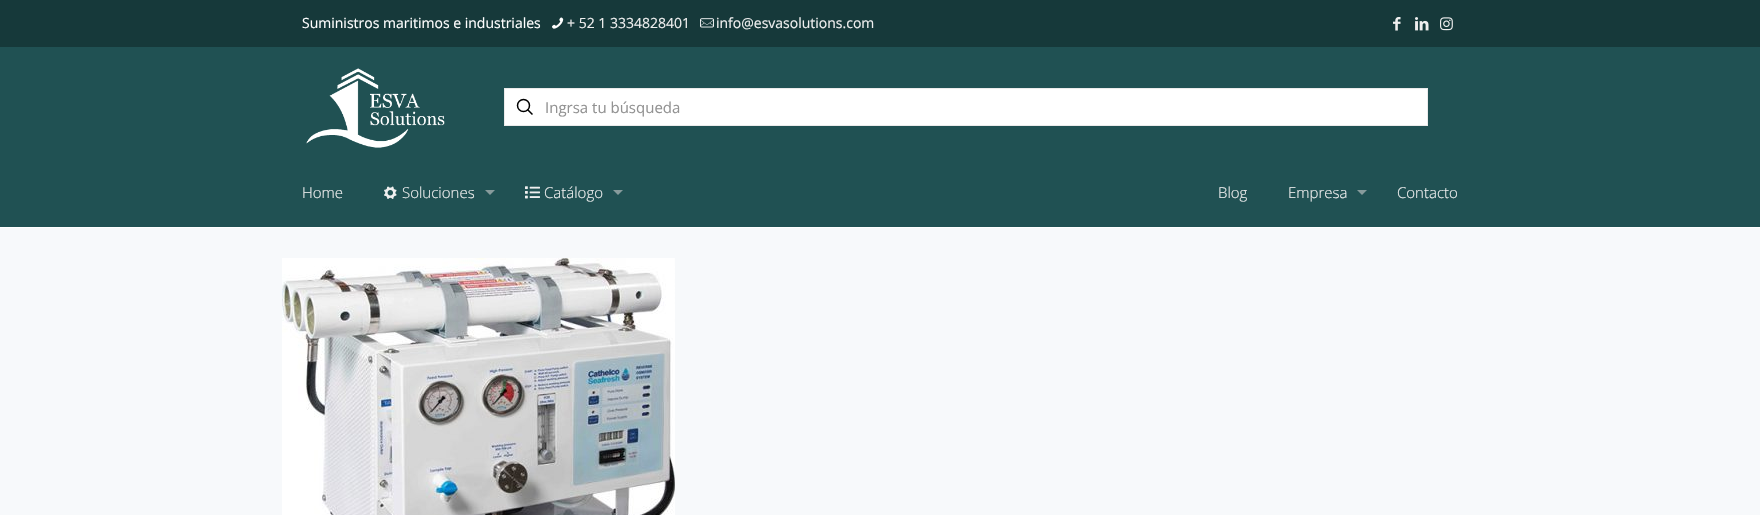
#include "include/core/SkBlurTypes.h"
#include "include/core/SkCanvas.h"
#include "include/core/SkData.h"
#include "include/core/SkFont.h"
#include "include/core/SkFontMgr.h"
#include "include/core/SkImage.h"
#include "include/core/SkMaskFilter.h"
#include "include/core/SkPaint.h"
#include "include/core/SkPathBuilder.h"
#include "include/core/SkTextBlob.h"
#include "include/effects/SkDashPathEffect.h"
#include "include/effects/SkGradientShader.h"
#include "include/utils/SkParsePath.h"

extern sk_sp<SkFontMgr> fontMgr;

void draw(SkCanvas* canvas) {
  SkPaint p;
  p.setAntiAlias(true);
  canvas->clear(SkColorSetRGB(247, 249, 251));
  p.setColor(SkColorSetRGB(32, 81, 83));
  canvas->drawRect(SkRect::MakeLTRB(0, 47, 1760, 227), p);
  p.setColor(SkColorSetRGB(22, 57, 58));
  canvas->drawRect(SkRect::MakeLTRB(0, 0, 1760, 47), p);
  canvas->drawImageRect(SkImages::DeferredFromEncodedData(SkData::MakeFromFileName("images/1.png")), SkRect::MakeLTRB(552, 17, 564, 29), SkSamplingOptions());
  canvas->drawImageRect(SkImages::DeferredFromEncodedData(SkData::MakeFromFileName("images/2.png")), SkRect::MakeLTRB(700, 18, 714, 28), SkSamplingOptions());
  canvas->drawImageRect(SkImages::DeferredFromEncodedData(SkData::MakeFromFileName("images/3.png")), SkRect::MakeLTRB(1393, 17, 1401, 31), SkSamplingOptions());
  canvas->drawImageRect(SkImages::DeferredFromEncodedData(SkData::MakeFromFileName("images/4.png")), SkRect::MakeLTRB(1415, 17, 1429, 31), SkSamplingOptions());
  canvas->drawImageRect(SkImages::DeferredFromEncodedData(SkData::MakeFromFileName("images/5.png")), SkRect::MakeLTRB(1440, 17, 1453, 31), SkSamplingOptions());
  p.setColor(SK_ColorWHITE);
  canvas->drawRect(SkRect::MakeLTRB(0, 227, 1760, 228), p);
  canvas->drawImageRect(SkImages::DeferredFromEncodedData(SkData::MakeFromFileName("images/6.png")), SkRect::MakeLTRB(306, 68, 445, 148), SkSamplingOptions());
  canvas->drawRect(SkRect::MakeLTRB(504.5f, 88.5f, 1427.5f, 125.5f), p);
  p.setStyle(SkPaint::kStroke_Style);
  p.setStrokeWidth(1);
  p.setColor(SkColorSetRGB(235, 235, 235));
  canvas->drawRect(SkRect::MakeLTRB(504.5f, 88.5f, 1427.5f, 125.5f), p);
  p.setStrokeWidth(1.5f);
  p.setColor(SK_ColorBLACK);
  canvas->drawCircle(523.5f, 105.5f, 6, p);
  canvas->drawPath(SkPathBuilder().moveTo(527.5f, 109.5f).lineTo(532.5f, 114.5f).detach(), p);
  canvas->drawImageRect(SkImages::DeferredFromEncodedData(SkData::MakeFromFileName("images/7.png")), SkRect::MakeLTRB(384, 186, 397, 199), SkSamplingOptions());
  p.setStyle(SkPaint::kFill_Style);
  p.setColor(SkColorSetRGB(135, 155, 156));
  canvas->drawPath(SkPathBuilder().moveTo(485, 190).lineTo(495, 190).lineTo(490, 195).close().detach(), p);
  canvas->drawImageRect(SkImages::DeferredFromEncodedData(SkData::MakeFromFileName("images/8.png")), SkRect::MakeLTRB(525, 186, 540, 199), SkSamplingOptions());
  canvas->drawPath(SkPathBuilder().moveTo(613, 190).lineTo(623, 190).lineTo(618, 195).close().detach(), p);
  canvas->drawPath(SkPathBuilder().moveTo(1357, 190).lineTo(1367, 190).lineTo(1362, 195).close().detach(), p);
  canvas->drawImageRect(SkImages::DeferredFromEncodedData(SkData::MakeFromFileName("images/9.png")), SkRect::MakeLTRB(282, 258, 675, 515), SkSamplingOptions());
  SkFont font1(fontMgr->matchFamilyStyle("Open Sans", SkFontStyle::Normal()), 14);
  font1.setSubpixel(true);
  p.setColor(SK_ColorWHITE);
  canvas->drawString("Suministros maritimos e industriales", 302, 28, font1, p);
  p.setColor(SkColorSetRGB(239, 239, 239));
  canvas->drawString("+ 52 1 3334828401", 567, 28, font1, p);
  canvas->drawString("info@esvasolutions.com", 716, 28, font1, p);
  SkFont font2(fontMgr->matchFamilyStyle("Open Sans", SkFontStyle::Normal()), 15);
  font2.setSubpixel(true);
  p.setColor(SkColorSetRGB(146, 146, 146));
  canvas->drawString("Ingrsa tu búsqueda", 545, 113, font2, p);
  SkFont font3(fontMgr->matchFamilyStyle("Open Sans", SkFontStyle(300, SkFontStyle::kNormal_Width, SkFontStyle::kUpright_Slant)), 15);
  font3.setSubpixel(true);
  p.setColor(SkColorSetRGB(239, 239, 239));
  canvas->drawString("Home", 302, 198, font3, p);
  canvas->drawString("Soluciones", 402, 198, font3, p);
  canvas->drawString("Catálogo", 544, 198, font3, p);
  canvas->drawString("Blog", 1218, 198, font3, p);
  canvas->drawString("Empresa", 1288, 198, font3, p);
  canvas->drawString("Contacto", 1397, 198, font3, p);
}
